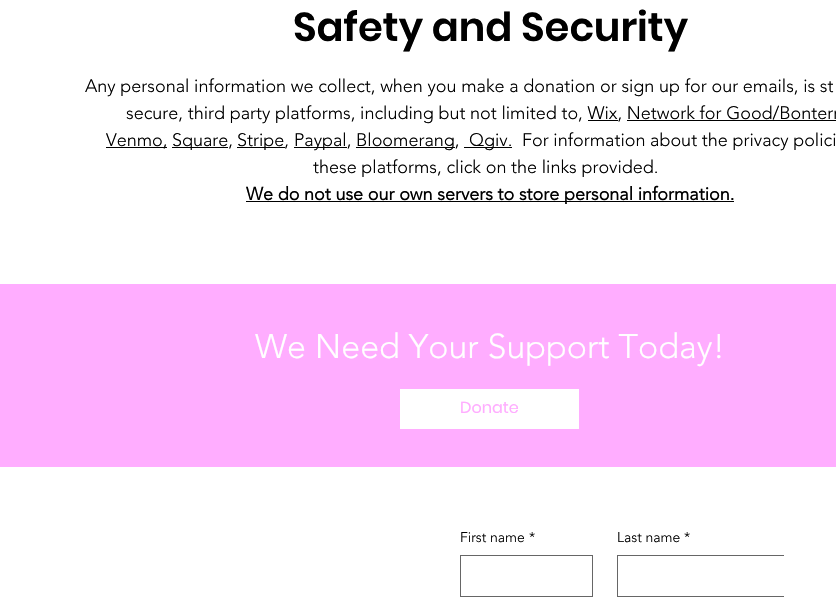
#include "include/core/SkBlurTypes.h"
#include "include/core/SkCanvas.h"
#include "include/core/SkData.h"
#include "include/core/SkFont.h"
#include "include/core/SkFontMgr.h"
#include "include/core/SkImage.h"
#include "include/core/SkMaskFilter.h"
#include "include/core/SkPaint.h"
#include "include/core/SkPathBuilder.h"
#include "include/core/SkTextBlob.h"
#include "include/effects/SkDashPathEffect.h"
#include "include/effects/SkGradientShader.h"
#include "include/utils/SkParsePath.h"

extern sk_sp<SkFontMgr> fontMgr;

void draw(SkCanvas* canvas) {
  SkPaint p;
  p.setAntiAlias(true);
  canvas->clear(SK_ColorWHITE);
  p.setColor(SK_ColorBLACK);
  canvas->drawRect(SkRect::MakeLTRB(588, 120, 618, 121), p);
  canvas->drawRect(SkRect::MakeLTRB(627, 120, 836, 121), p);
  canvas->drawRect(SkRect::MakeLTRB(106, 147, 167, 148), p);
  canvas->drawRect(SkRect::MakeLTRB(172, 147, 228, 148), p);
  canvas->drawRect(SkRect::MakeLTRB(237, 147, 285, 148), p);
  canvas->drawRect(SkRect::MakeLTRB(294, 147, 347, 148), p);
  canvas->drawRect(SkRect::MakeLTRB(356, 147, 455, 148), p);
  canvas->drawRect(SkRect::MakeLTRB(464, 147, 512, 148), p);
  canvas->drawRect(SkRect::MakeLTRB(246, 201, 734, 202), p);
  p.setColor(SkColorSetRGB(255, 173, 255));
  canvas->drawRect(SkRect::MakeLTRB(0, 284, 836, 467), p);
  p.setColor(SK_ColorWHITE);
  canvas->drawRect(SkRect::MakeLTRB(400, 389, 579, 429), p);
  p.setStyle(SkPaint::kStroke_Style);
  p.setStrokeWidth(1);
  p.setColor(SkColorSetRGB(102, 102, 102));
  canvas->drawRect(SkRect::MakeLTRB(460.5f, 555.5f, 592.5f, 596.5f), p);
  canvas->drawRect(SkRect::MakeLTRB(617.5f, 555.5f, 811.5f, 596.5f), p);
  p.setStyle(SkPaint::kFill_Style);
  p.setColor(SK_ColorWHITE);
  canvas->drawRect(SkRect::MakeLTRB(784, 555, 812, 597), p);
  SkFont font1(fontMgr->matchFamilyStyle("Poppins", SkFontStyle(600, SkFontStyle::kNormal_Width, SkFontStyle::kUpright_Slant)), 40);
  font1.setSubpixel(true);
  p.setColor(SK_ColorBLACK);
  canvas->drawString("Safety and Security", 293, 41, font1, p);
  SkFont font2(fontMgr->matchFamilyStyle("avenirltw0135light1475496", SkFontStyle(300, SkFontStyle::kNormal_Width, SkFontStyle::kUpright_Slant)), 18);
  font2.setSubpixel(true);
  canvas->drawString("Any personal information we collect, when you make a donation or sign up for our emails, is st", 85, 92, font2, p);
  canvas->drawString("secure, third party platforms, including but not limited to, Wix, Network for Good/Bonterr", 126, 119, font2, p);
  canvas->drawString("Venmo,", 106, 146, font2, p);
  canvas->drawString("Square,", 172, 146, font2, p);
  canvas->drawString("Stripe,", 237, 146, font2, p);
  canvas->drawString("Paypal,", 294, 146, font2, p);
  canvas->drawString("Bloomerang,", 356, 146, font2, p);
  canvas->drawString("Qgiv.", 469, 146, font2, p);
  canvas->drawString("For information about the privacy polici", 522, 146, font2, p);
  canvas->drawString("these platforms, click on the links provided.", 313, 173, font2, p);
  SkFont font3(fontMgr->matchFamilyStyle("avenirltw0135light1475496", SkFontStyle::Bold()), 18);
  font3.setSubpixel(true);
  canvas->drawString("We do not use our own servers to store personal information.", 246, 200, font3, p);
  SkFont font4(fontMgr->matchFamilyStyle("avenirltw0135light1475496", SkFontStyle(300, SkFontStyle::kNormal_Width, SkFontStyle::kUpright_Slant)), 34);
  font4.setSubpixel(true);
  p.setColor(SK_ColorWHITE);
  canvas->drawString("We Need Your Support Today!", 255, 358, font4, p);
  SkFont font5(fontMgr->matchFamilyStyle("Poppins", SkFontStyle::Normal()), 16);
  font5.setSubpixel(true);
  p.setColor(SkColorSetRGB(255, 173, 255));
  canvas->drawString("Donate", 460, 413, font5, p);
  SkFont font6(fontMgr->matchFamilyStyle("avenirltw0135light1475496", SkFontStyle(300, SkFontStyle::kNormal_Width, SkFontStyle::kUpright_Slant)), 14);
  font6.setSubpixel(true);
  p.setColor(SK_ColorBLACK);
  canvas->drawString("First name", 460, 542, font6, p);
  canvas->drawString("*", 529, 542, font6, p);
  canvas->drawString("Last name", 617, 542, font6, p);
  canvas->drawString("*", 684, 542, font6, p);
}
